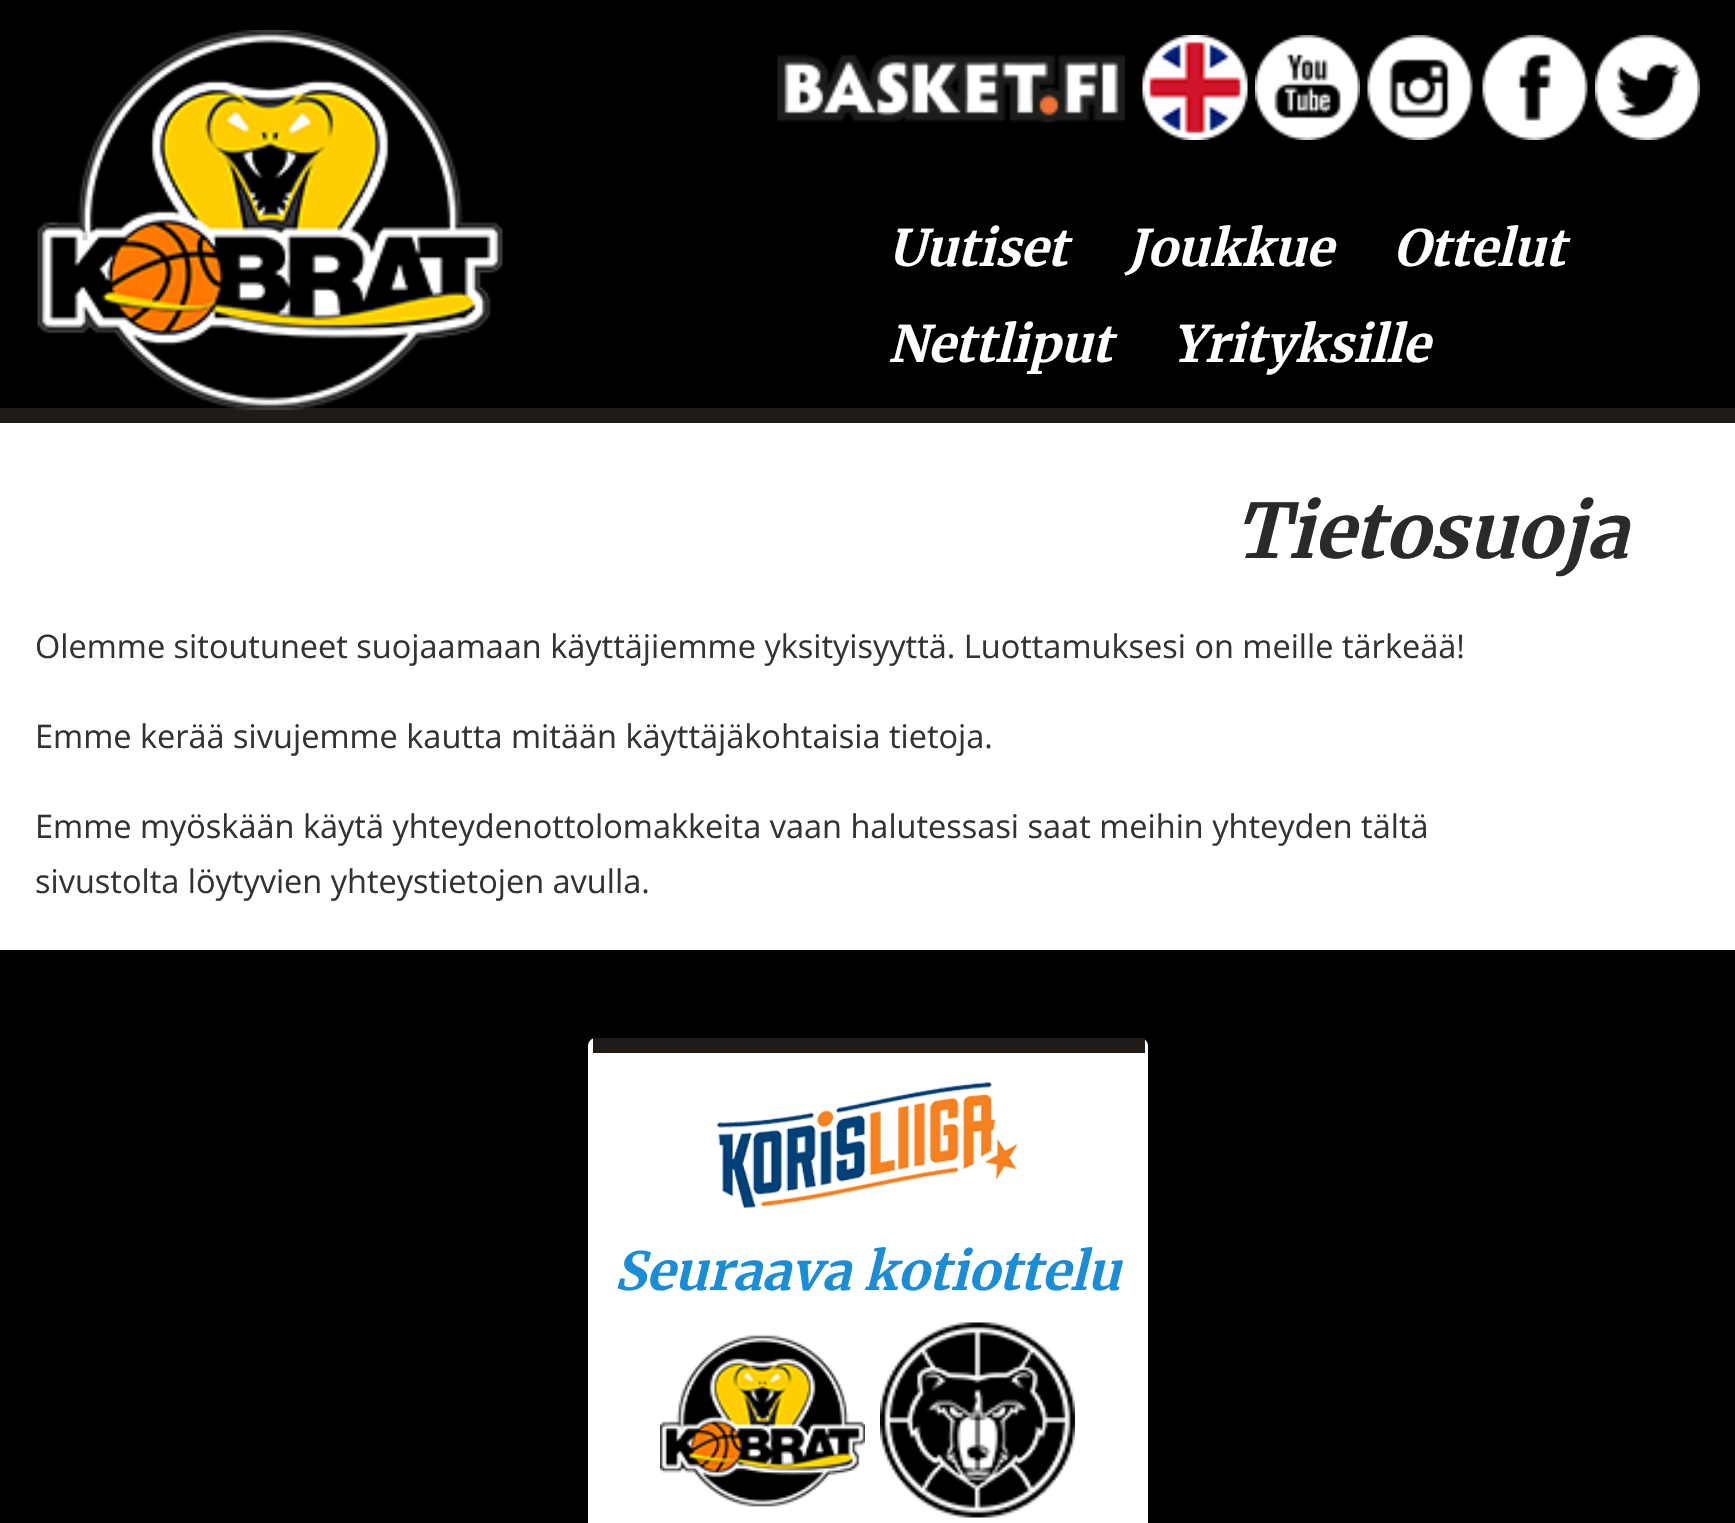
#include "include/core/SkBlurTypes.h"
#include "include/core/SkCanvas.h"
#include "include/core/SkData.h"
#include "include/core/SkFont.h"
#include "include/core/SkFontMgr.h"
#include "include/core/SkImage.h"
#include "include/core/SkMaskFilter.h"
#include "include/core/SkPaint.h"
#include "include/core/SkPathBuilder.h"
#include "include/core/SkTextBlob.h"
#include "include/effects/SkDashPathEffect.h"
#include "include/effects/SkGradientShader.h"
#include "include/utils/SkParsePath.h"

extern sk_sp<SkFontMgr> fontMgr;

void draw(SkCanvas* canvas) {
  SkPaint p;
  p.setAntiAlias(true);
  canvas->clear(SK_ColorBLACK);
  p.setColor(SkColorSetRGB(32, 27, 23));
  canvas->drawRect(SkRect::MakeLTRB(0, 408, 1735, 423), p);
  canvas->drawImageRect(SkImages::DeferredFromEncodedData(SkData::MakeFromFileName("images/1.png")), SkRect::MakeLTRB(37, 30, 503, 410), SkSamplingOptions());
  canvas->drawImageRect(SkImages::DeferredFromEncodedData(SkData::MakeFromFileName("images/2.png")), SkRect::MakeLTRB(777, 54, 1125, 123), SkSamplingOptions());
  canvas->drawImageRect(SkImages::DeferredFromEncodedData(SkData::MakeFromFileName("images/3.png")), SkRect::MakeLTRB(1142, 35, 1248, 140), SkSamplingOptions());
  canvas->drawImageRect(SkImages::DeferredFromEncodedData(SkData::MakeFromFileName("images/4.png")), SkRect::MakeLTRB(1255, 35, 1360, 140), SkSamplingOptions());
  canvas->drawImageRect(SkImages::DeferredFromEncodedData(SkData::MakeFromFileName("images/5.png")), SkRect::MakeLTRB(1367, 35, 1473, 140), SkSamplingOptions());
  canvas->drawImageRect(SkImages::DeferredFromEncodedData(SkData::MakeFromFileName("images/6.png")), SkRect::MakeLTRB(1482, 35, 1588, 140), SkSamplingOptions());
  canvas->drawImageRect(SkImages::DeferredFromEncodedData(SkData::MakeFromFileName("images/7.png")), SkRect::MakeLTRB(1595, 35, 1700, 140), SkSamplingOptions());
  p.setColor(SK_ColorWHITE);
  canvas->drawRect(SkRect::MakeLTRB(0, 423, 1735, 950), p);
  canvas->drawPath(SkPathBuilder().moveTo(596, 1038).lineTo(1140, 1038).cubicTo(1144.5f, 1038, 1148, 1041.5f, 1148, 1046).lineTo(1148, 1083).lineTo(588, 1083).lineTo(588, 1046).cubicTo(588, 1041.5f, 591.5f, 1038, 596, 1038).close().detach(), p);
  p.setColor(SkColorSetRGB(32, 27, 23));
  canvas->drawRect(SkRect::MakeLTRB(593, 1038, 1145, 1053), p);
  p.setColor(SK_ColorWHITE);
  canvas->drawRect(SkRect::MakeLTRB(588, 1083, 1148, 1523), p);
  canvas->drawImageRect(SkImages::DeferredFromEncodedData(SkData::MakeFromFileName("images/8.png")), SkRect::MakeLTRB(717, 1082, 1018, 1208), SkSamplingOptions());
  canvas->drawImageRect(SkImages::DeferredFromEncodedData(SkData::MakeFromFileName("images/9.png")), SkRect::MakeLTRB(660, 1335, 865, 1507), SkSamplingOptions());
  canvas->drawImageRect(SkImages::DeferredFromEncodedData(SkData::MakeFromFileName("images/10.png")), SkRect::MakeLTRB(880, 1322, 1075, 1518), SkSamplingOptions());
  SkFont font1(fontMgr->matchFamilyStyle("Merriweather", SkFontStyle(300, SkFontStyle::kNormal_Width, SkFontStyle::kItalic_Slant)), 50);
  font1.setSubpixel(true);
  canvas->drawString("Uutiset", 888, 266, font1, p);
  canvas->drawString("Joukkue", 1127, 266, font1, p);
  canvas->drawString("Ottelut", 1393, 266, font1, p);
  canvas->drawString("Nettliput", 888, 362, font1, p);
  canvas->drawString("Yrityksille", 1172, 362, font1, p);
  SkFont font2(fontMgr->matchFamilyStyle("Merriweather", SkFontStyle(300, SkFontStyle::kNormal_Width, SkFontStyle::kItalic_Slant)), 75);
  font2.setSubpixel(true);
  p.setColor(SkColorSetRGB(42, 42, 42));
  canvas->drawString("Tietosuoja", 1234, 558, font2, p);
  SkFont font3(fontMgr->matchFamilyStyle("Open Sans", SkFontStyle::Normal()), 32.5f);
  font3.setSubpixel(true);
  p.setColor(SkColorSetRGB(51, 51, 51));
  canvas->drawString("Olemme sitoutuneet suojaamaan käyttäjiemme yksityisyyttä. Luottamuksesi on meille tärkeää!", 35, 658, font3, p);
  canvas->drawString("Emme kerää sivujemme kautta mitään käyttäjäkohtaisia tietoja.", 35, 748, font3, p);
  canvas->drawString("Emme myöskään käytä yhteydenottolomakkeita vaan halutessasi saat meihin yhteyden tältä", 35, 838, font3, p);
  canvas->drawString("sivustolta löytyvien yhteystietojen avulla.", 35, 893, font3, p);
  SkFont font4(fontMgr->matchFamilyStyle("Merriweather", SkFontStyle(300, SkFontStyle::kNormal_Width, SkFontStyle::kItalic_Slant)), 52.5f);
  font4.setSubpixel(true);
  p.setColor(SkColorSetRGB(27, 141, 214));
  canvas->drawString("Seuraava kotiottelu", 614, 1290, font4, p);
}
